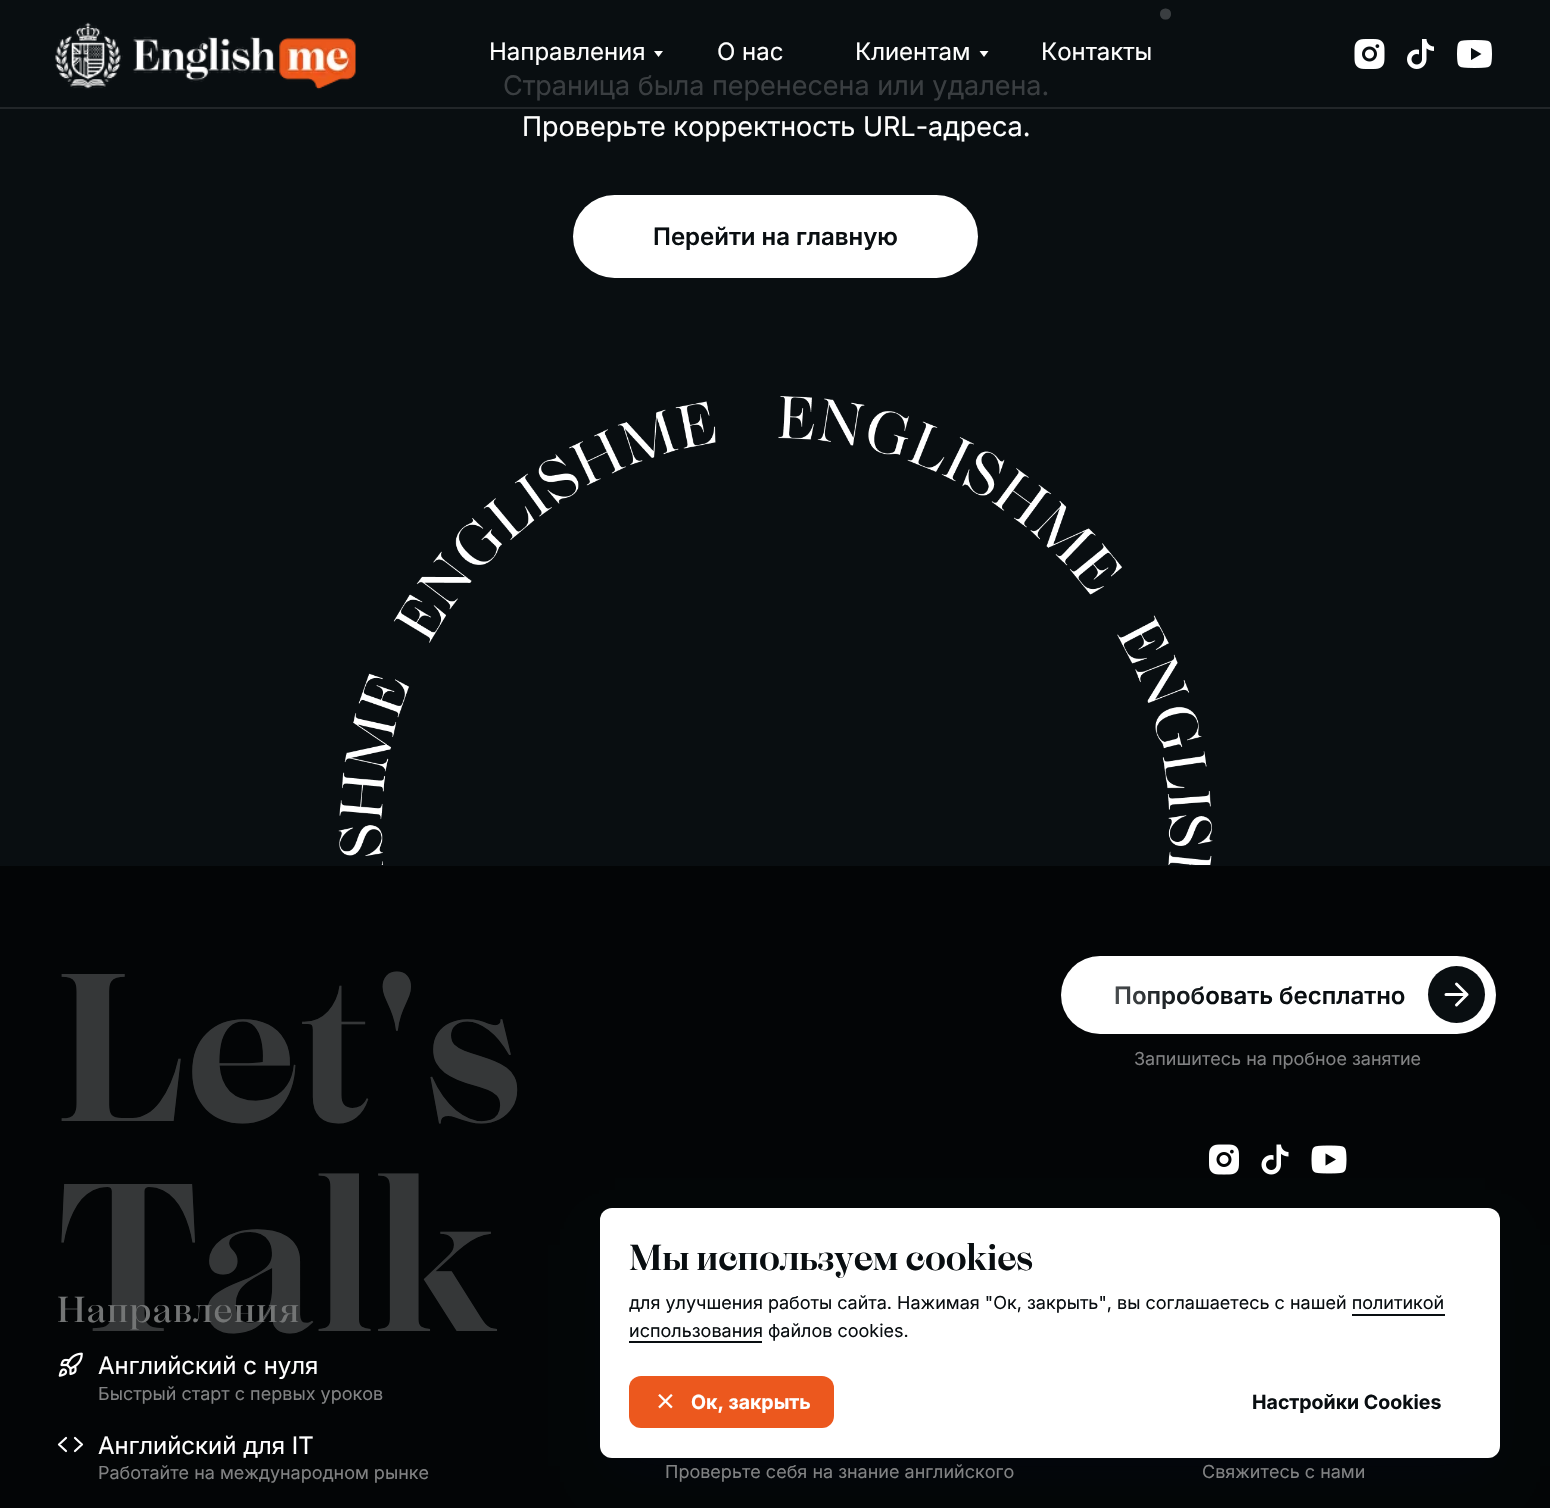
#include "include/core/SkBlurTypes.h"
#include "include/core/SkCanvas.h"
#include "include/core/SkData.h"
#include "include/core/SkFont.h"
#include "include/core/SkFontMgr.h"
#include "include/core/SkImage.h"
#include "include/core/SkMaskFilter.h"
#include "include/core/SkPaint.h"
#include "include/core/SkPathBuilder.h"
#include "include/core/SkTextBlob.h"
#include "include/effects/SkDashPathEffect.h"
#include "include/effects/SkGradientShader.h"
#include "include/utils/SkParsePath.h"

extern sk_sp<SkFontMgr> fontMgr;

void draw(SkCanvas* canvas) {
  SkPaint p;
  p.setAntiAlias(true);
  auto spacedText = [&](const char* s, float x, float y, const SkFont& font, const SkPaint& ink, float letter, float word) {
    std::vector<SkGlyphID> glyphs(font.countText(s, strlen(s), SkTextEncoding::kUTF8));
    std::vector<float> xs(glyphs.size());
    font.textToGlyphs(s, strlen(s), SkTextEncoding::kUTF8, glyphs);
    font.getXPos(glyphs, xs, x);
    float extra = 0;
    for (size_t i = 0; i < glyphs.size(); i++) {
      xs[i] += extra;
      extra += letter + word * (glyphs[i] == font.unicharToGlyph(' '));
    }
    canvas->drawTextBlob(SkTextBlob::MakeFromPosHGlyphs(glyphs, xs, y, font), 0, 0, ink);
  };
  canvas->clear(SkColorSetRGB(9, 14, 17));
  p.setColor(SK_ColorWHITE);
  canvas->drawRoundRect(SkRect::MakeLTRB(573, 195, 978, 278), 41.5f, 41.5f, p);
  canvas->drawImageRect(SkImages::DeferredFromEncodedData(SkData::MakeFromFileName("images/1.png")), SkRect::MakeLTRB(338, 396, 1213, 865), SkSamplingOptions());
  canvas->drawImageRect(SkImages::DeferredFromEncodedData(SkData::MakeFromFileName("images/2.png")), SkRect::MakeLTRB(55, 22, 356, 90), SkSamplingOptions());
  canvas->drawPath(SkPathBuilder().moveTo(654, 51).lineTo(663, 51).lineTo(658.5f, 57).close().detach(), p);
  canvas->drawPath(SkPathBuilder().moveTo(979.5f, 51).lineTo(988.5f, 51).lineTo(984, 57).close().detach(), p);
  canvas->drawImageRect(SkImages::DeferredFromEncodedData(SkData::MakeFromFileName("images/3.png")), SkRect::MakeLTRB(1354, 39, 1385, 69), SkSamplingOptions());
  canvas->drawImageRect(SkImages::DeferredFromEncodedData(SkData::MakeFromFileName("images/4.png")), SkRect::MakeLTRB(1407, 39, 1434, 69), SkSamplingOptions());
  canvas->drawImageRect(SkImages::DeferredFromEncodedData(SkData::MakeFromFileName("images/5.png")), SkRect::MakeLTRB(1457, 40, 1492, 68), SkSamplingOptions());
  p.setColor(SkColorSetRGB(34, 38, 41));
  canvas->drawRect(SkRect::MakeLTRB(0, 107, 1550, 109), p);
  p.setColor(SkColorSetRGB(3, 5, 6));
  canvas->drawRect(SkRect::MakeLTRB(0, 866, 1550, 1508), p);
  p.setColor(SK_ColorWHITE);
  canvas->drawRoundRect(SkRect::MakeLTRB(1061, 956, 1496, 1034), 39, 39, p);
  p.setColor(SkColorSetRGB(9, 14, 17));
  canvas->drawCircle(1456.5f, 994.5f, 28.5f, p);
  p.setStyle(SkPaint::kStroke_Style);
  p.setStrokeWidth(3);
  p.setStrokeCap(SkPaint::kRound_Cap);
  p.setStrokeJoin(SkPaint::kRound_Join);
  p.setColor(SK_ColorWHITE);
  canvas->drawPath(SkPathBuilder().moveTo(1446, 994.5f).lineTo(1467, 994.5f).moveTo(1456.5f, 984).lineTo(1467, 994.5f).lineTo(1456.5f, 1005).detach(), p);
  canvas->drawImageRect(SkImages::DeferredFromEncodedData(SkData::MakeFromFileName("images/6.png")), SkRect::MakeLTRB(1209, 1144, 1239, 1175), SkSamplingOptions());
  canvas->drawImageRect(SkImages::DeferredFromEncodedData(SkData::MakeFromFileName("images/7.png")), SkRect::MakeLTRB(1261, 1144, 1289, 1175), SkSamplingOptions());
  canvas->drawImageRect(SkImages::DeferredFromEncodedData(SkData::MakeFromFileName("images/8.png")), SkRect::MakeLTRB(1311, 1145, 1347, 1174), SkSamplingOptions());
  canvas->drawImageRect(SkImages::DeferredFromEncodedData(SkData::MakeFromFileName("images/9.png")), SkRect::MakeLTRB(58, 1352, 83, 1377), SkSamplingOptions());
  p.setStrokeWidth(2.2f);
  canvas->drawPath(SkPathBuilder().moveTo(75, 1451).lineTo(82, 1444.5f).lineTo(75, 1438).moveTo(66, 1438).lineTo(59, 1444.5f).lineTo(66, 1451).detach(), p);
  p.setStyle(SkPaint::kFill_Style);
  p.setColor(SkColorSetARGB(51, 0, 11, 48));
  p.setMaskFilter(SkMaskFilter::MakeBlur(kNormal_SkBlurStyle, 22.5f));
  canvas->drawRect(SkRect::MakeLTRB(615, 1245, 1485, 1466), p);
  p.setMaskFilter(nullptr);
  p.setColor(SK_ColorWHITE);
  canvas->drawRoundRect(SkRect::MakeLTRB(600, 1208, 1500, 1458), 12, 12, p);
  p.setColor(SkColorSetRGB(9, 14, 17));
  canvas->drawRect(SkRect::MakeLTRB(1352, 1314, 1445, 1316), p);
  canvas->drawRect(SkRect::MakeLTRB(629, 1341, 762, 1343), p);
  p.setColor(SkColorSetRGB(236, 88, 30));
  canvas->drawRoundRect(SkRect::MakeLTRB(629, 1376, 834, 1428), 12, 12, p);
  canvas->drawImageRect(SkImages::DeferredFromEncodedData(SkData::MakeFromFileName("images/10.png")), SkRect::MakeLTRB(658, 1394, 673, 1409), SkSamplingOptions());
  SkFont font1(fontMgr->matchFamilyStyle("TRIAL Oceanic", SkFontStyle::Normal()), 78);
  font1.setSubpixel(true);
  p.setColor(SkColorSetRGB(58, 62, 65));
  canvas->drawString(".", 1154, 19, font1, p);
  SkFont font2(fontMgr->matchFamilyStyle("Inter", SkFontStyle::Normal()), 27);
  font2.setSubpixel(true);
  canvas->drawString("Страница была перенесена или удалена.", 503, 95, font2, p);
  p.setColor(SK_ColorWHITE);
  canvas->drawString("Проверьте корректность URL-адреса.", 522, 136, font2, p);
  SkFont font3(fontMgr->matchFamilyStyle("Inter", SkFontStyle(600, SkFontStyle::kNormal_Width, SkFontStyle::kUpright_Slant)), 24);
  font3.setSubpixel(true);
  p.setColor(SkColorSetRGB(9, 14, 17));
  canvas->drawString("Перейти на главную", 653, 245, font3, p);
  SkFont font4(fontMgr->matchFamilyStyle("Inter", SkFontStyle::Normal()), 24);
  font4.setSubpixel(true);
  p.setColor(SK_ColorWHITE);
  canvas->drawString("Направления", 489, 60, font4, p);
  canvas->drawString("О нас", 717, 60, font4, p);
  canvas->drawString("Клиентам", 855, 60, font4, p);
  canvas->drawString("Контакты", 1041, 60, font4, p);
  SkFont font5(fontMgr->matchFamilyStyle("TRIAL Oceanic", SkFontStyle(500, SkFontStyle::kNormal_Width, SkFontStyle::kUpright_Slant)), 210);
  font5.setSubpixel(true);
  p.setColor(SkColorSetRGB(53, 55, 56));
  spacedText("Let's", 56, 1121, font5, p, 1.5f, 0);
  spacedText("Talk", 56, 1331, font5, p, 1.5f, 0);
  p.setColor(SkColorSetRGB(9, 14, 17));
  canvas->drawString("Попробовать бесплатно", 1114, 1004, font3, p);
  canvas->save();
  canvas->clipRect(SkRect::MakeLTRB(1109, 980, 1412, 1011));
  {
    const SkColor colors[] = {SkColorSetARGB(0, 255, 255, 255), SkColorSetARGB(128, 255, 255, 255), SkColorSetARGB(13, 255, 255, 255)};
    const float stops[] = {0.24f, 0.45f, 0.85f};
    const SkPoint ends[] = {{918, 1041}, {1208, 950}};
    p.setShader(SkGradientShader::MakeLinear(ends, colors, stops, 3, SkTileMode::kClamp));
    p.setAlpha(255);
  }
  canvas->drawPath(SkPathBuilder().moveTo(933, 980).lineTo(1206, 980).lineTo(1193, 1011).lineTo(920, 1011).close().detach(), p);
  canvas->restore();
  SkFont font6(fontMgr->matchFamilyStyle("Inter", SkFontStyle::Normal()), 18);
  font6.setSubpixel(true);
  p.setShader(nullptr);
  p.setColor(SkColorSetRGB(129, 130, 131));
  canvas->drawString("Запишитесь на пробное занятие", 1134, 1065, font6, p);
  SkFont font7(fontMgr->matchFamilyStyle("TRIAL Oceanic", SkFontStyle::Normal()), 36);
  font7.setSubpixel(true);
  p.setColor(SkColorSetRGB(115, 117, 117));
  spacedText("Направления", 57, 1322, font7, p, 1.5f, 0);
  p.setColor(SK_ColorWHITE);
  canvas->drawString("Английский с нуля", 98, 1374, font4, p);
  p.setColor(SkColorSetRGB(129, 130, 131));
  canvas->drawString("Быстрый старт с первых уроков", 98, 1400, font6, p);
  p.setColor(SK_ColorWHITE);
  canvas->drawString("Английский для IT", 98, 1454, font4, p);
  p.setColor(SkColorSetRGB(129, 130, 131));
  canvas->drawString("Работайте на международном рынке", 98, 1479, font6, p);
  canvas->drawString("Проверьте себя на знание английского", 665, 1478, font6, p);
  canvas->drawString("Свяжитесь с нами", 1202, 1478, font6, p);
  SkFont font8(fontMgr->matchFamilyStyle("TRIAL Oceanic", SkFontStyle(500, SkFontStyle::kNormal_Width, SkFontStyle::kUpright_Slant)), 36);
  font8.setSubpixel(true);
  p.setColor(SkColorSetRGB(9, 14, 17));
  canvas->drawString("Мы используем cookies", 629, 1270, font8, p);
  canvas->drawString("для улучшения работы сайта. Нажимая \"Ок, закрыть\", вы соглашаетесь с нашей политикой", 629, 1309, font6, p);
  canvas->drawString("использования файлов cookies.", 629, 1337, font6, p);
  SkFont font9(fontMgr->matchFamilyStyle("Inter", SkFontStyle::Bold()), 19.5f);
  font9.setSubpixel(true);
  p.setColor(SK_ColorWHITE);
  canvas->drawString("Ок, закрыть", 691, 1409, font9, p);
  p.setColor(SkColorSetRGB(9, 14, 17));
  canvas->drawString("Настройки Cookies", 1252, 1409, font9, p);
}
